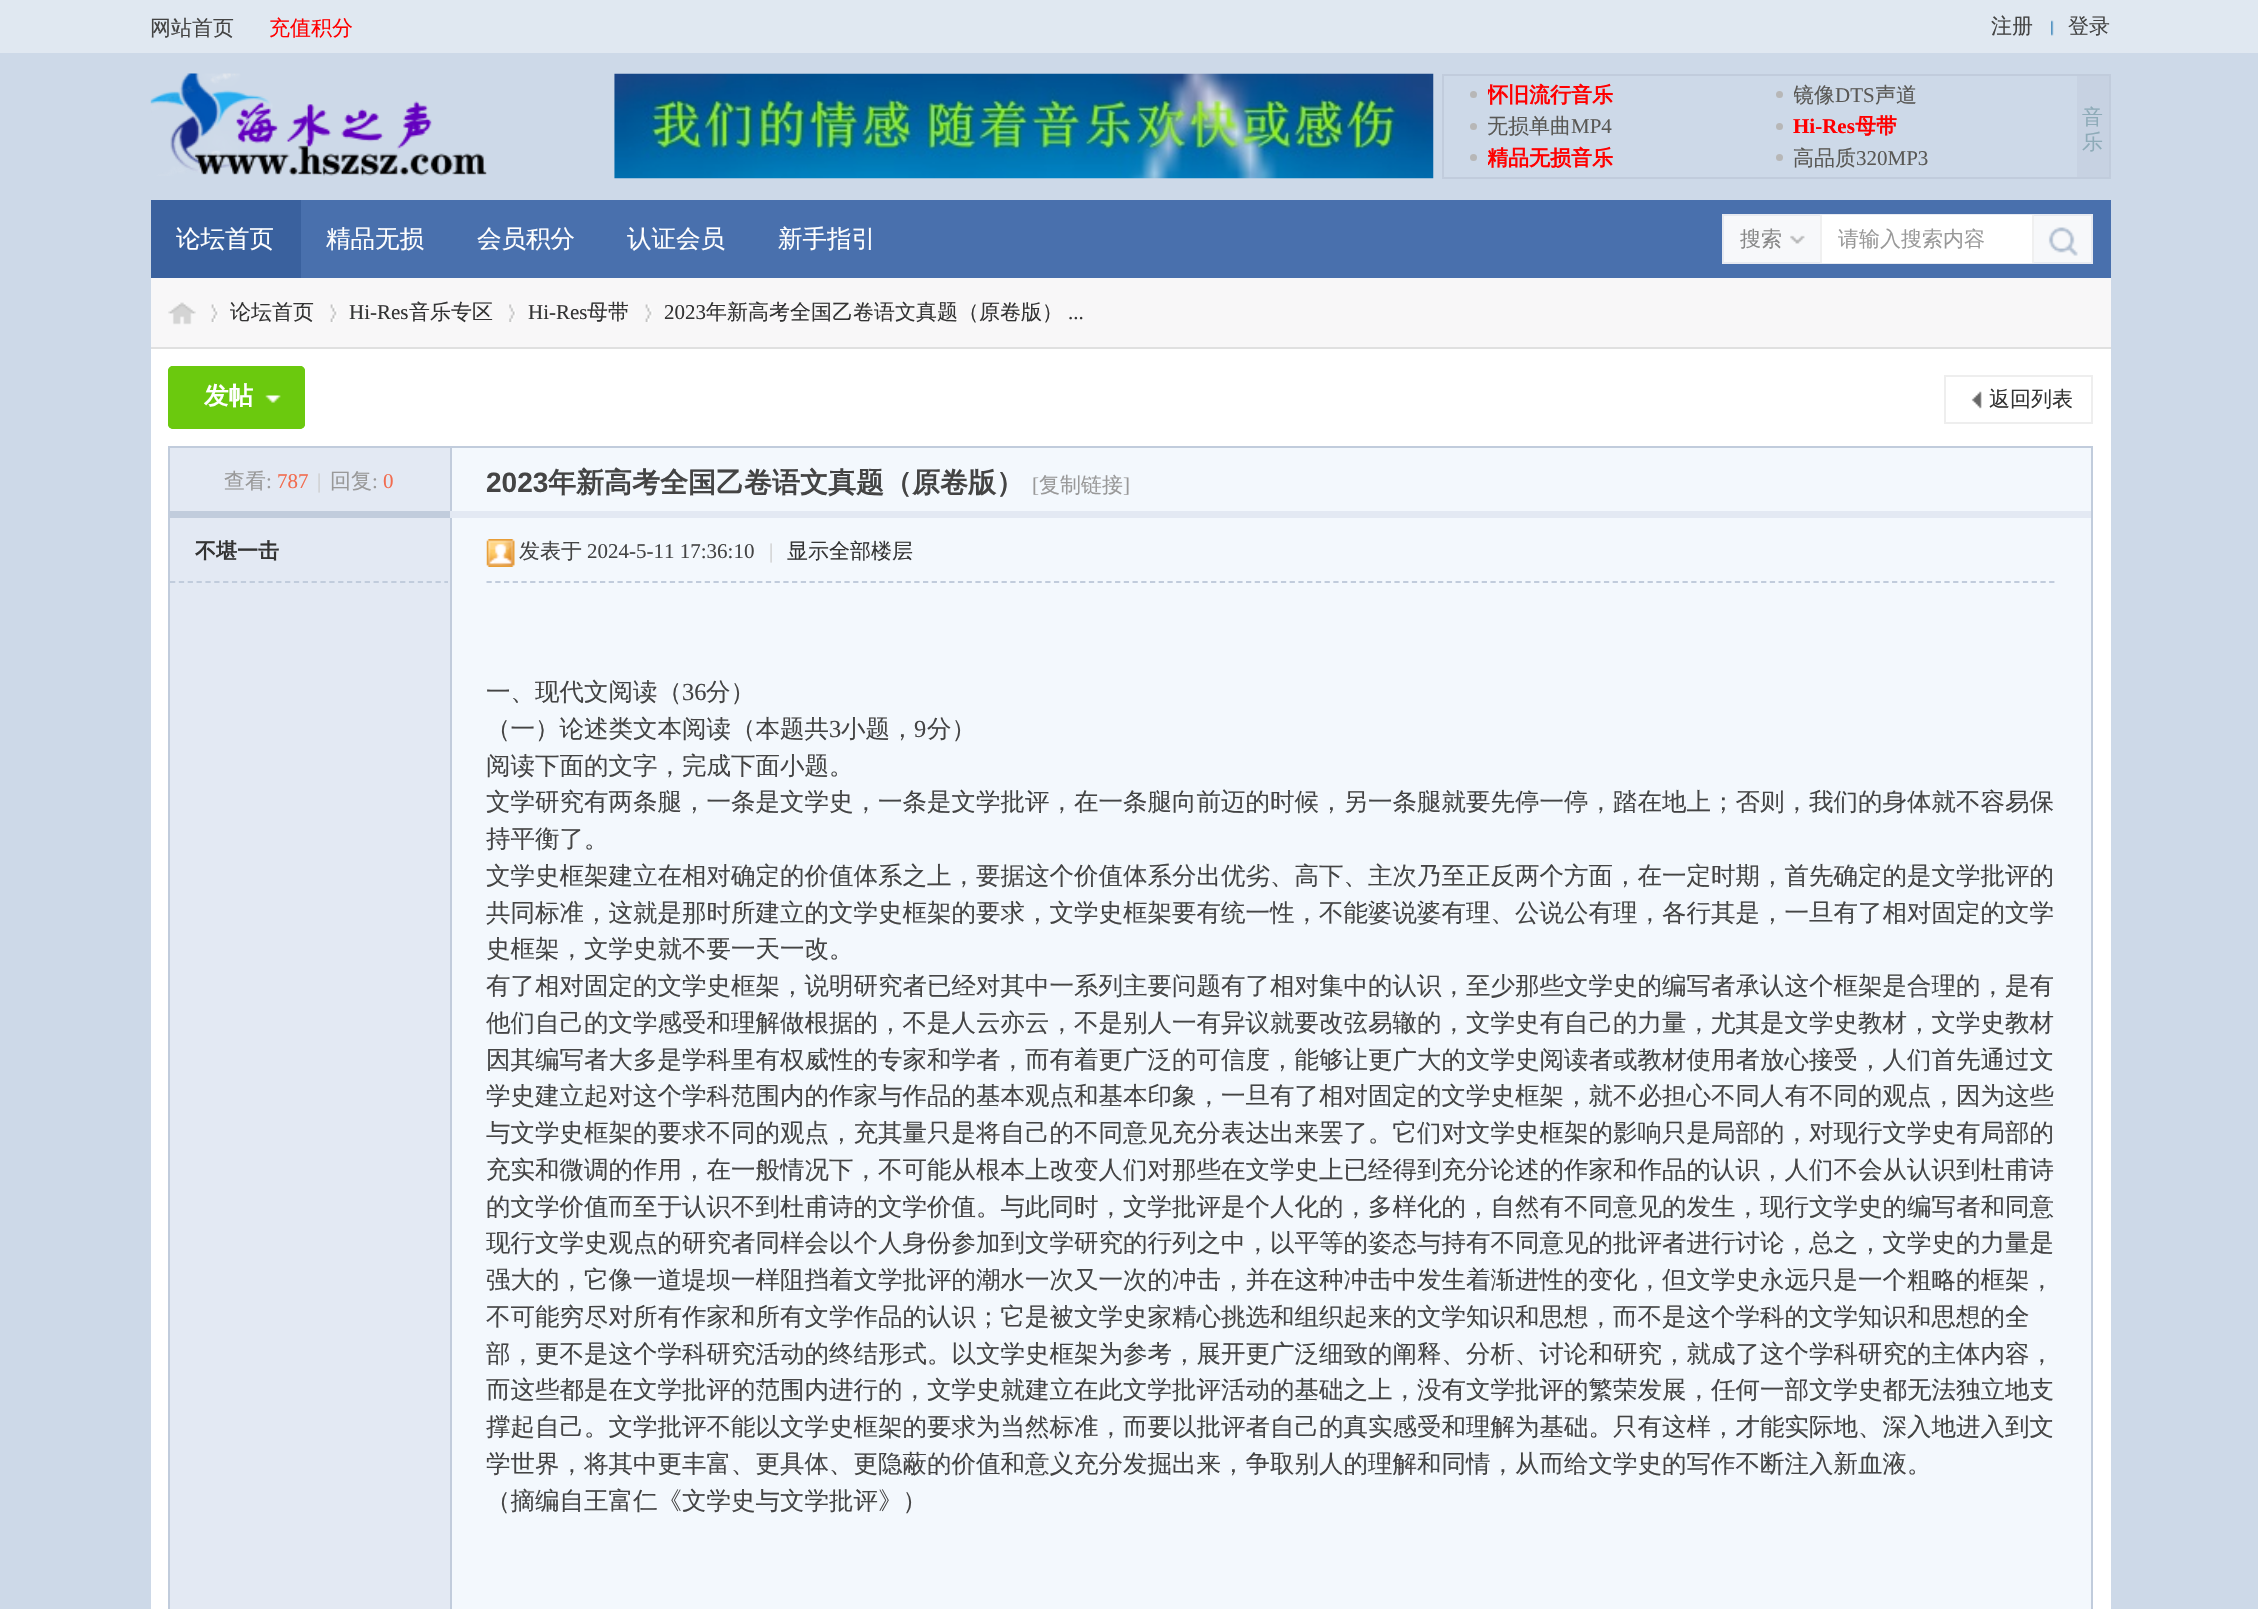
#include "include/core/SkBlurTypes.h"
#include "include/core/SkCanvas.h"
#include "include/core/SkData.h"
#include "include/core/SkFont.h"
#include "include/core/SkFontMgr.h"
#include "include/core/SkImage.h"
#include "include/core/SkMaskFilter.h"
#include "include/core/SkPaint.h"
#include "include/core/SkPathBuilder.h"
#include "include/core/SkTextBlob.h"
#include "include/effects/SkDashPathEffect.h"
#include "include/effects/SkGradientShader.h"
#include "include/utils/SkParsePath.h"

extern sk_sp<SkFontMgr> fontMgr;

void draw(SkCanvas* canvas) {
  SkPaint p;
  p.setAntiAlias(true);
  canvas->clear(SkColorSetRGB(205, 217, 232));
  p.setColor(SkColorSetRGB(224, 232, 241));
  canvas->drawRect(SkRect::MakeLTRB(0, 0, 2258, 53), p);
  canvas->drawImageRect(SkImages::DeferredFromEncodedData(SkData::MakeFromFileName("images/1.png")), SkRect::MakeLTRB(2051, 20, 2054, 36), SkSamplingOptions());
  canvas->drawImageRect(SkImages::DeferredFromEncodedData(SkData::MakeFromFileName("images/2.png")), SkRect::MakeLTRB(150, 73, 487, 176), SkSamplingOptions());
  canvas->drawImageRect(SkImages::DeferredFromEncodedData(SkData::MakeFromFileName("images/3.png")), SkRect::MakeLTRB(614, 73, 1434, 179), SkSamplingOptions());
  p.setStyle(SkPaint::kStroke_Style);
  p.setStrokeWidth(2);
  p.setColor(SkColorSetRGB(193, 204, 220));
  canvas->drawRect(SkRect::MakeLTRB(1443, 75, 2110, 178), p);
  p.setStyle(SkPaint::kFill_Style);
  p.setColor(SkColorSetRGB(183, 183, 183));
  canvas->drawCircle(1473.5f, 94.5f, 3.5f, p);
  canvas->drawCircle(1779.5f, 94.5f, 3.5f, p);
  canvas->drawCircle(1473.5f, 126.5f, 3.5f, p);
  canvas->drawCircle(1779.5f, 126.5f, 3.5f, p);
  canvas->drawCircle(1473.5f, 157.5f, 3.5f, p);
  canvas->drawCircle(1779.5f, 157.5f, 3.5f, p);
  p.setColor(SkColorSetARGB(128, 193, 204, 220));
  canvas->drawRect(SkRect::MakeLTRB(2077, 76, 2109, 177), p);
  p.setColor(SkColorSetRGB(73, 112, 173));
  canvas->drawRect(SkRect::MakeLTRB(301, 200, 2111, 278), p);
  p.setColor(SkColorSetRGB(58, 97, 158));
  canvas->drawRect(SkRect::MakeLTRB(151, 200, 301, 278), p);
  p.setColor(SkColorSetRGB(247, 248, 250));
  canvas->drawRect(SkRect::MakeLTRB(1723, 215, 2092, 263), p);
  p.setStyle(SkPaint::kStroke_Style);
  p.setColor(SkColorSetRGB(231, 234, 241));
  canvas->drawRect(SkRect::MakeLTRB(1723, 215, 2092, 263), p);
  p.setStyle(SkPaint::kFill_Style);
  p.setColor(SkColorSetRGB(240, 240, 240));
  canvas->drawRect(SkRect::MakeLTRB(1820, 215, 1822, 263), p);
  canvas->drawImageRect(SkImages::DeferredFromEncodedData(SkData::MakeFromFileName("images/4.png")), SkRect::MakeLTRB(1790, 235, 1805, 244), SkSamplingOptions());
  p.setColor(SK_ColorWHITE);
  canvas->drawRect(SkRect::MakeLTRB(1822, 215, 2032, 263), p);
  p.setColor(SkColorSetRGB(240, 240, 240));
  canvas->drawRect(SkRect::MakeLTRB(2032, 215, 2034, 263), p);
  canvas->drawImageRect(SkImages::DeferredFromEncodedData(SkData::MakeFromFileName("images/5.png")), SkRect::MakeLTRB(2048, 227, 2078, 256), SkSamplingOptions());
  p.setColor(SK_ColorWHITE);
  canvas->drawRect(SkRect::MakeLTRB(151, 349, 2111, 1609), p);
  p.setColor(SkColorSetRGB(248, 247, 248));
  canvas->drawRect(SkRect::MakeLTRB(151, 278, 2111, 347), p);
  p.setColor(SkColorSetRGB(224, 224, 224));
  canvas->drawRect(SkRect::MakeLTRB(151, 347, 2111, 349), p);
  canvas->drawImageRect(SkImages::DeferredFromEncodedData(SkData::MakeFromFileName("images/6.png")), SkRect::MakeLTRB(168, 302, 196, 325), SkSamplingOptions());
  canvas->drawImageRect(SkImages::DeferredFromEncodedData(SkData::MakeFromFileName("images/7.png")), SkRect::MakeLTRB(211, 304, 219, 322), SkSamplingOptions());
  canvas->drawImageRect(SkImages::DeferredFromEncodedData(SkData::MakeFromFileName("images/7.png")), SkRect::MakeLTRB(330, 304, 338, 322), SkSamplingOptions());
  canvas->drawImageRect(SkImages::DeferredFromEncodedData(SkData::MakeFromFileName("images/8.png")), SkRect::MakeLTRB(509, 304, 516, 322), SkSamplingOptions());
  canvas->drawImageRect(SkImages::DeferredFromEncodedData(SkData::MakeFromFileName("images/7.png")), SkRect::MakeLTRB(645, 304, 653, 322), SkSamplingOptions());
  p.setColor(SkColorSetRGB(107, 201, 14));
  canvas->drawRoundRect(SkRect::MakeLTRB(168, 366, 305, 429), 5, 5, p);
  canvas->drawImageRect(SkImages::DeferredFromEncodedData(SkData::MakeFromFileName("images/9.png")), SkRect::MakeLTRB(265, 395, 281, 403), SkSamplingOptions());
  p.setStyle(SkPaint::kStroke_Style);
  canvas->drawRoundRect(SkRect::MakeLTRB(169, 367, 304, 428), 4, 4, p);
  canvas->drawImageRect(SkImages::DeferredFromEncodedData(SkData::MakeFromFileName("images/10.png")), SkRect::MakeLTRB(1971, 391, 1982, 409), SkSamplingOptions());
  p.setColor(SkColorSetRGB(238, 238, 238));
  canvas->drawRect(SkRect::MakeLTRB(1945, 376, 2092, 423), p);
  p.setStyle(SkPaint::kFill_Style);
  p.setColor(SkColorSetRGB(243, 248, 253));
  canvas->drawRect(SkRect::MakeLTRB(452, 448, 2091, 1609), p);
  p.setStyle(SkPaint::kStroke_Style);
  p.setColor(SkColorSetRGB(193, 204, 220));
  canvas->drawRect(SkRect::MakeLTRB(169, 447, 2092, 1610), p);
  p.setStyle(SkPaint::kFill_Style);
  canvas->drawRect(SkRect::MakeLTRB(450, 448, 452, 513), p);
  p.setColor(SkColorSetRGB(227, 233, 243));
  canvas->drawRect(SkRect::MakeLTRB(170, 448, 450, 511), p);
  p.setColor(SkColorSetRGB(193, 204, 220));
  canvas->drawRect(SkRect::MakeLTRB(170, 511, 450, 518), p);
  p.setColor(SkColorSetRGB(227, 233, 243));
  canvas->drawRect(SkRect::MakeLTRB(450, 511, 2091, 518), p);
  p.setColor(SkColorSetRGB(193, 204, 220));
  canvas->drawRect(SkRect::MakeLTRB(450, 518, 452, 1609), p);
  p.setColor(SkColorSetRGB(227, 233, 243));
  canvas->drawRect(SkRect::MakeLTRB(170, 518, 450, 1609), p);
  canvas->save();
  canvas->clipRect(SkRect::MakeLTRB(170, 518, 448, 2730));
  p.setStyle(SkPaint::kStroke_Style);
  p.setStrokeWidth(1.8f);
  p.setColor(SkColorSetRGB(193, 204, 220));
  p.setPathEffect(SkDashPathEffect::Make({{5.25f, 3.6f}}, 0));
  canvas->drawPath(SkPathBuilder().moveTo(170, 582).lineTo(450, 582).detach(), p);
  p.setPathEffect(nullptr);
  canvas->restore();
  p.setPathEffect(SkDashPathEffect::Make({{5.25f, 3.48f}}, 0));
  canvas->drawPath(SkPathBuilder().moveTo(486.5f, 582).lineTo(2056, 582).detach(), p);
  p.setPathEffect(nullptr);
  canvas->drawImageRect(SkImages::DeferredFromEncodedData(SkData::MakeFromFileName("images/11.png")), SkRect::MakeLTRB(486, 539, 515, 567), SkSamplingOptions());
  SkFont font1(fontMgr->matchFamilyStyle("WenQuanYi Zen Hei", SkFontStyle(500, SkFontStyle::kNormal_Width, SkFontStyle::kUpright_Slant)), 21);
  font1.setSubpixel(true);
  p.setStyle(SkPaint::kFill_Style);
  p.setColor(SkColorSetRGB(68, 68, 68));
  canvas->drawString("网站首页", 150, 35, font1, p);
  p.setColor(SkColorSetRGB(255, 0, 0));
  canvas->drawString("充值积分", 269, 35, font1, p);
  p.setColor(SkColorSetRGB(68, 68, 68));
  canvas->drawString("注册", 1991, 33, font1, p);
  canvas->drawString("登录", 2068, 33, font1, p);
  canvas->save();
  canvas->clipRect(SkRect::MakeLTRB(1488, 79, 1750, 110));
  SkFont font2(fontMgr->matchFamilyStyle("WenQuanYi Zen Hei", SkFontStyle::Bold()), 21);
  font2.setSubpixel(true);
  p.setColor(SkColorSetRGB(255, 0, 0));
  canvas->drawString("怀旧流行音乐", 1487, 102, font2, p);
  canvas->restore();
  canvas->save();
  canvas->clipRect(SkRect::MakeLTRB(1794, 79, 2056, 110));
  p.setColor(SkColorSetRGB(89, 88, 85));
  canvas->drawString("镜像", 1793, 102, font1, p);
  canvas->restore();
  SkFont font3(fontMgr->matchFamilyStyle("Liberation Serif", SkFontStyle::Normal()), 21);
  font3.setSubpixel(true);
  canvas->drawString("DTS", 1835, 102, font3, p);
  canvas->drawString("声道", 1875, 102, font1, p);
  canvas->save();
  canvas->clipRect(SkRect::MakeLTRB(1488, 110, 1750, 142));
  canvas->drawString("无损单曲", 1487, 133, font1, p);
  canvas->restore();
  canvas->drawString("MP4", 1571, 133, font3, p);
  SkFont font4(fontMgr->matchFamilyStyle("Liberation Serif", SkFontStyle::Bold()), 21);
  font4.setSubpixel(true);
  p.setColor(SkColorSetRGB(255, 0, 0));
  canvas->drawString("Hi-Res", 1793, 133, font4, p);
  canvas->drawString("母带", 1855, 133, font2, p);
  canvas->save();
  canvas->clipRect(SkRect::MakeLTRB(1488, 142, 1750, 173));
  canvas->drawString("精品无损音乐", 1487, 165, font2, p);
  canvas->restore();
  p.setColor(SkColorSetRGB(89, 88, 85));
  canvas->drawString("高品质", 1793, 165, font1, p);
  canvas->drawString("320MP3", 1856, 165, font3, p);
  p.setColor(SkColorSetRGB(142, 171, 184));
  canvas->drawString("音", 2082, 124, font1, p);
  canvas->drawString("乐", 2082, 149, font1, p);
  SkFont font5(fontMgr->matchFamilyStyle("WenQuanYi Zen Hei", SkFontStyle(500, SkFontStyle::kNormal_Width, SkFontStyle::kUpright_Slant)), 24.5f);
  font5.setSubpixel(true);
  p.setColor(SK_ColorWHITE);
  canvas->drawString("论坛首页", 176, 247, font5, p);
  canvas->drawString("精品无损", 326, 247, font5, p);
  canvas->drawString("会员积分", 477, 247, font5, p);
  canvas->drawString("认证会员", 627, 247, font5, p);
  canvas->drawString("新手指引", 778, 247, font5, p);
  p.setColor(SkColorSetRGB(136, 136, 136));
  canvas->drawString("搜索", 1740, 246, font1, p);
  p.setColor(SkColorSetRGB(153, 153, 153));
  canvas->drawString("请输入搜索内容", 1838, 246, font1, p);
  p.setColor(SkColorSetRGB(51, 51, 51));
  canvas->drawString("论坛首页", 230, 319, font1, p);
  canvas->drawString("Hi-Res", 349, 319, font3, p);
  canvas->drawString("音乐专区", 409, 319, font1, p);
  canvas->drawString("Hi-Res", 528, 319, font3, p);
  canvas->drawString("母带", 587, 319, font1, p);
  canvas->drawString("2023", 664, 319, font3, p);
  canvas->drawString("年新高考全国乙卷语文真题（原卷版）", 706, 319, font1, p);
  canvas->drawString("...", 1068, 319, font3, p);
  SkFont font6(fontMgr->matchFamilyStyle("WenQuanYi Zen Hei", SkFontStyle::Bold()), 24.5f);
  font6.setSubpixel(true);
  p.setColor(SK_ColorWHITE);
  canvas->drawString("发帖", 204, 404, font6, p);
  p.setColor(SkColorSetRGB(51, 51, 51));
  canvas->drawString("返回列表", 1989, 406, font1, p);
  p.setColor(SkColorSetRGB(153, 153, 153));
  canvas->drawString("查看", 224, 488, font1, p);
  canvas->drawString(":", 266, 488, font3, p);
  p.setColor(SkColorSetRGB(242, 108, 79));
  canvas->drawString("787", 277, 488, font3, p);
  p.setColor(SkColorSetRGB(204, 204, 204));
  canvas->drawString("|", 317, 488, font3, p);
  p.setColor(SkColorSetRGB(153, 153, 153));
  canvas->drawString("回复", 330, 488, font1, p);
  canvas->drawString(":", 372, 488, font3, p);
  p.setColor(SkColorSetRGB(242, 108, 79));
  canvas->drawString("0", 383, 488, font3, p);
  SkFont font7(fontMgr->matchFamilyStyle("Liberation Sans", SkFontStyle::Bold()), 28);
  font7.setSubpixel(true);
  p.setColor(SkColorSetRGB(68, 68, 68));
  canvas->drawString("2023", 486, 492, font7, p);
  SkFont font8(fontMgr->matchFamilyStyle("WenQuanYi Zen Hei", SkFontStyle::Bold()), 28);
  font8.setSubpixel(true);
  canvas->drawString("年新高考全国乙卷语文真题（原卷版）", 548, 492, font8, p);
  p.setColor(SkColorSetRGB(153, 153, 153));
  canvas->drawString("[", 1032, 492, font3, p);
  canvas->drawString("复制链接", 1039, 492, font1, p);
  canvas->drawString("]", 1123, 492, font3, p);
  p.setColor(SkColorSetRGB(51, 51, 51));
  canvas->drawString("不堪一击", 195, 558, font2, p);
  p.setColor(SkColorSetRGB(68, 68, 68));
  canvas->drawString("发表于", 519, 558, font1, p);
  canvas->drawString("2024-5-11 17:36:10", 587, 558, font3, p);
  p.setColor(SkColorSetRGB(204, 204, 204));
  canvas->drawString("|", 769, 558, font3, p);
  p.setColor(SkColorSetRGB(51, 51, 51));
  canvas->drawString("显示全部楼层", 787, 558, font1, p);
  p.setColor(SkColorSetRGB(68, 68, 68));
  canvas->drawString("一、现代文阅读（", 486, 700, font5, p);
  SkFont font9(fontMgr->matchFamilyStyle("Liberation Serif", SkFontStyle::Normal()), 24.5f);
  font9.setSubpixel(true);
  canvas->drawString("36", 682, 700, font9, p);
  canvas->drawString("分）", 706, 700, font5, p);
  canvas->drawString("（一）论述类文本阅读（本题共", 486, 737, font5, p);
  canvas->drawString("3", 829, 737, font9, p);
  canvas->drawString("小题，", 841, 737, font5, p);
  canvas->drawString("9", 914, 737, font9, p);
  canvas->drawString("分）", 927, 737, font5, p);
  canvas->drawString("阅读下面的文字，完成下面小题。", 486, 774, font5, p);
  canvas->drawString("文学研究有两条腿，一条是文学史，一条是文学批评，在一条腿向前迈的时候，另一条腿就要先停一停，踏在地上；否则，我们的身体就不容易保", 486, 810, font5, p);
  canvas->drawString("持平衡了。", 486, 847, font5, p);
  canvas->drawString("文学史框架建立在相对确定的价值体系之上，要据这个价值体系分出优劣、高下、主次乃至正反两个方面，在一定时期，首先确定的是文学批评的", 486, 884, font5, p);
  canvas->drawString("共同标准，这就是那时所建立的文学史框架的要求，文学史框架要有统一性，不能婆说婆有理、公说公有理，各行其是，一旦有了相对固定的文学", 486, 921, font5, p);
  canvas->drawString("史框架，文学史就不要一天一改。", 486, 957, font5, p);
  canvas->drawString("有了相对固定的文学史框架，说明研究者已经对其中一系列主要问题有了相对集中的认识，至少那些文学史的编写者承认这个框架是合理的，是有", 486, 994, font5, p);
  canvas->drawString("他们自己的文学感受和理解做根据的，不是人云亦云，不是别人一有异议就要改弦易辙的，文学史有自己的力量，尤其是文学史教材，文学史教材", 486, 1031, font5, p);
  canvas->drawString("因其编写者大多是学科里有权威性的专家和学者，而有着更广泛的可信度，能够让更广大的文学史阅读者或教材使用者放心接受，人们首先通过文", 486, 1068, font5, p);
  canvas->drawString("学史建立起对这个学科范围内的作家与作品的基本观点和基本印象，一旦有了相对固定的文学史框架，就不必担心不同人有不同的观点，因为这些", 486, 1104, font5, p);
  canvas->drawString("与文学史框架的要求不同的观点，充其量只是将自己的不同意见充分表达出来罢了。它们对文学史框架的影响只是局部的，对现行文学史有局部的", 486, 1141, font5, p);
  canvas->drawString("充实和微调的作用，在一般情况下，不可能从根本上改变人们对那些在文学史上已经得到充分论述的作家和作品的认识，人们不会从认识到杜甫诗", 486, 1178, font5, p);
  canvas->drawString("的文学价值而至于认识不到杜甫诗的文学价值。与此同时，文学批评是个人化的，多样化的，自然有不同意见的发生，现行文学史的编写者和同意", 486, 1215, font5, p);
  canvas->drawString("现行文学史观点的研究者同样会以个人身份参加到文学研究的行列之中，以平等的姿态与持有不同意见的批评者进行讨论，总之，文学史的力量是", 486, 1251, font5, p);
  canvas->drawString("强大的，它像一道堤坝一样阻挡着文学批评的潮水一次又一次的冲击，并在这种冲击中发生着渐进性的变化，但文学史永远只是一个粗略的框架，", 486, 1288, font5, p);
  canvas->drawString("不可能穷尽对所有作家和所有文学作品的认识；它是被文学史家精心挑选和组织起来的文学知识和思想，而不是这个学科的文学知识和思想的全", 486, 1325, font5, p);
  canvas->drawString("部，更不是这个学科研究活动的终结形式。以文学史框架为参考，展开更广泛细致的阐释、分析、讨论和研究，就成了这个学科研究的主体内容，", 486, 1362, font5, p);
  canvas->drawString("而这些都是在文学批评的范围内进行的，文学史就建立在此文学批评活动的基础之上，没有文学批评的繁荣发展，任何一部文学史都无法独立地支", 486, 1398, font5, p);
  canvas->drawString("撑起自己。文学批评不能以文学史框架的要求为当然标准，而要以批评者自己的真实感受和理解为基础。只有这样，才能实际地、深入地进入到文", 486, 1435, font5, p);
  canvas->drawString("学世界，将其中更丰富、更具体、更隐蔽的价值和意义充分发掘出来，争取别人的理解和同情，从而给文学史的写作不断注入新血液。", 486, 1472, font5, p);
  canvas->drawString("（摘编自王富仁《文学史与文学批评》）", 486, 1509, font5, p);
}
